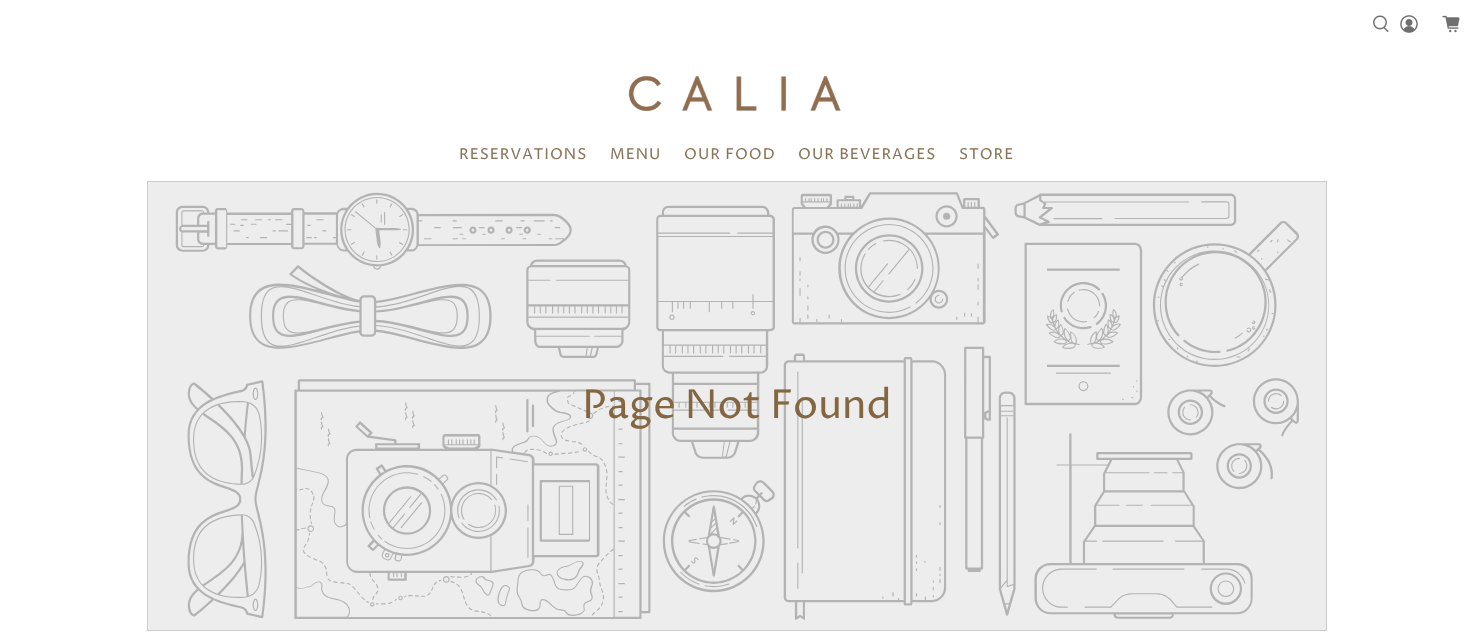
#include "include/core/SkBlurTypes.h"
#include "include/core/SkCanvas.h"
#include "include/core/SkData.h"
#include "include/core/SkFont.h"
#include "include/core/SkFontMgr.h"
#include "include/core/SkImage.h"
#include "include/core/SkMaskFilter.h"
#include "include/core/SkPaint.h"
#include "include/core/SkPathBuilder.h"
#include "include/core/SkTextBlob.h"
#include "include/effects/SkDashPathEffect.h"
#include "include/effects/SkGradientShader.h"
#include "include/utils/SkParsePath.h"

extern sk_sp<SkFontMgr> fontMgr;

void draw(SkCanvas* canvas) {
  SkPaint p;
  p.setAntiAlias(true);
  auto spacedText = [&](const char* s, float x, float y, const SkFont& font, const SkPaint& ink, float letter, float word) {
    std::vector<SkGlyphID> glyphs(font.countText(s, strlen(s), SkTextEncoding::kUTF8));
    std::vector<float> xs(glyphs.size());
    font.textToGlyphs(s, strlen(s), SkTextEncoding::kUTF8, glyphs);
    font.getXPos(glyphs, xs, x);
    float extra = 0;
    for (size_t i = 0; i < glyphs.size(); i++) {
      xs[i] += extra;
      extra += letter + word * (glyphs[i] == font.unicharToGlyph(' '));
    }
    canvas->drawTextBlob(SkTextBlob::MakeFromPosHGlyphs(glyphs, xs, y, font), 0, 0, ink);
  };
  canvas->clear(SK_ColorWHITE);
  canvas->drawImageRect(SkImages::DeferredFromEncodedData(SkData::MakeFromFileName("images/1.png")), SkRect::MakeLTRB(1373, 15, 1389, 33), SkSamplingOptions());
  canvas->drawImageRect(SkImages::DeferredFromEncodedData(SkData::MakeFromFileName("images/2.png")), SkRect::MakeLTRB(1400, 15, 1418, 33), SkSamplingOptions());
  canvas->drawImageRect(SkImages::DeferredFromEncodedData(SkData::MakeFromFileName("images/3.png")), SkRect::MakeLTRB(1442, 15, 1460, 33), SkSamplingOptions());
  canvas->drawImageRect(SkImages::DeferredFromEncodedData(SkData::MakeFromFileName("images/4.png")), SkRect::MakeLTRB(628, 76, 841, 112), SkSamplingOptions());
  p.setColor(SkColorSetRGB(237, 237, 237));
  canvas->drawRect(SkRect::MakeLTRB(147.5f, 181.5f, 1326.5f, 630.5f), p);
  p.setStyle(SkPaint::kStroke_Style);
  p.setStrokeWidth(1);
  p.setColor(SkColorSetRGB(204, 204, 204));
  canvas->drawRect(SkRect::MakeLTRB(147.5f, 181.5f, 1326.5f, 630.5f), p);
  canvas->drawImageRect(SkImages::DeferredFromEncodedData(SkData::MakeFromFileName("images/5.png")), SkRect::MakeLTRB(175, 192, 1300, 620), SkSamplingOptions());
  SkFont font1(fontMgr->matchFamilyStyle("Proza Libre", SkFontStyle::Normal()), 15);
  font1.setSubpixel(true);
  p.setStyle(SkPaint::kFill_Style);
  p.setColor(SkColorSetRGB(137, 115, 88));
  spacedText("RESERVATIONS", 459, 159, font1, p, 1, 0);
  spacedText("MENU", 610, 159, font1, p, 1, 0);
  spacedText("OUR FOOD", 684, 159, font1, p, 1, 0);
  spacedText("OUR BEVERAGES", 798, 159, font1, p, 1, 0);
  spacedText("STORE", 959, 159, font1, p, 1, 0);
  SkFont font2(fontMgr->matchFamilyStyle("Proza Libre", SkFontStyle::Normal()), 40);
  font2.setSubpixel(true);
  p.setColor(SkColorSetRGB(132, 102, 65));
  canvas->drawString("Page Not Found", 582, 418, font2, p);
}
